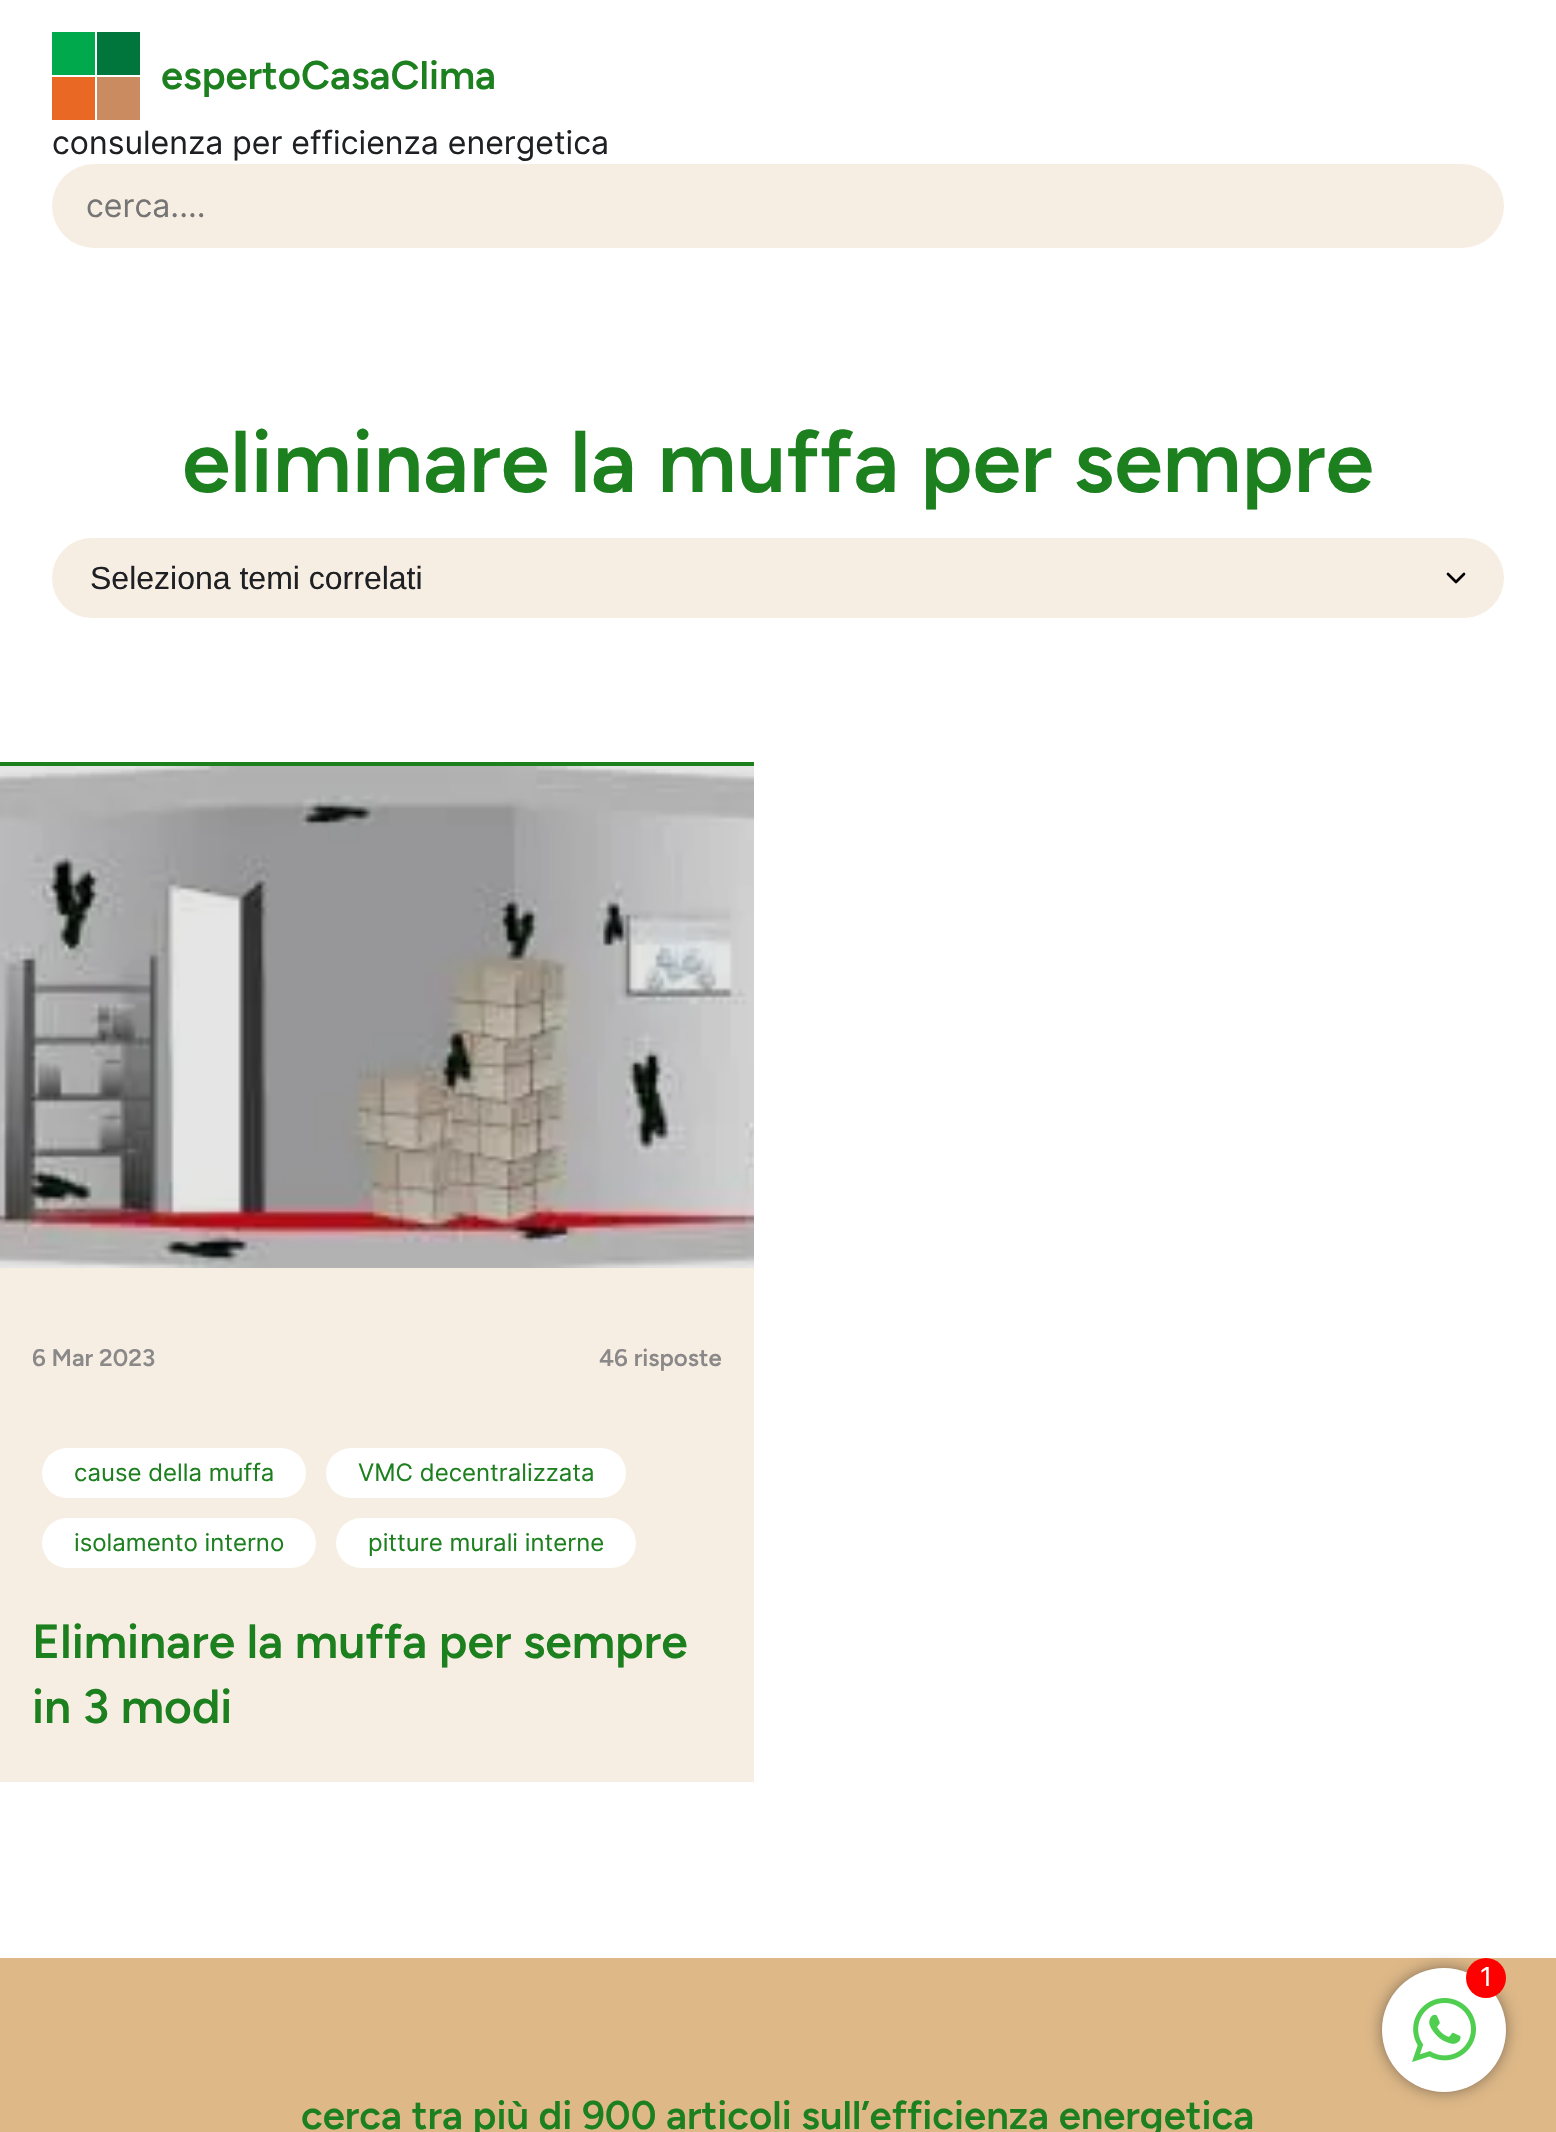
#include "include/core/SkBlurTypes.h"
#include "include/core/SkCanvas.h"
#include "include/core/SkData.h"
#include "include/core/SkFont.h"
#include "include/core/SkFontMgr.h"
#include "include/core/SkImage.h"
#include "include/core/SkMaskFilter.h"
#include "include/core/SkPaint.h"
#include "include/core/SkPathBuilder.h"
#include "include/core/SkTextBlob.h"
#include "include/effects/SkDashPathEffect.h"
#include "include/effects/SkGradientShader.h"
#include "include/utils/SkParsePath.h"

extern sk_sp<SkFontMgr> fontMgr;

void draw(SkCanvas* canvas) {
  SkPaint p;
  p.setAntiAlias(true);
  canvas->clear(SK_ColorWHITE);
  p.setColor(SkColorSetRGB(0, 170, 76));
  canvas->drawRect(SkRect::MakeLTRB(52, 32, 95, 75), p);
  p.setColor(SkColorSetRGB(0, 118, 61));
  canvas->drawRect(SkRect::MakeLTRB(97, 32, 140, 75), p);
  p.setColor(SkColorSetRGB(232, 104, 36));
  canvas->drawRect(SkRect::MakeLTRB(52, 77, 95, 120), p);
  p.setColor(SkColorSetRGB(203, 139, 96));
  canvas->drawRect(SkRect::MakeLTRB(97, 77, 140, 120), p);
  p.setColor(SkColorSetRGB(247, 238, 227));
  canvas->drawRoundRect(SkRect::MakeLTRB(52, 164, 1504, 248), 42, 42, p);
  canvas->drawRoundRect(SkRect::MakeLTRB(52, 538, 1504, 618), 40, 40, p);
  p.setStyle(SkPaint::kStroke_Style);
  p.setStrokeWidth(2.7f);
  p.setStrokeCap(SkPaint::kRound_Cap);
  p.setStrokeJoin(SkPaint::kRound_Join);
  p.setColor(SK_ColorBLACK);
  canvas->drawPath(SkPathBuilder().moveTo(1448, 574).lineTo(1456, 582).lineTo(1464, 574).detach(), p);
  p.setStyle(SkPaint::kFill_Style);
  p.setColor(SkColorSetRGB(247, 238, 227));
  canvas->drawRect(SkRect::MakeLTRB(0, 1268, 754, 1782), p);
  p.setColor(SkColorSetRGB(29, 128, 31));
  canvas->drawRect(SkRect::MakeLTRB(0, 762, 754, 766), p);
  canvas->drawImageRect(SkImages::DeferredFromEncodedData(SkData::MakeFromFileName("images/1.png")), SkRect::MakeLTRB(0, 766, 754, 1268), SkSamplingOptions());
  p.setColor(SK_ColorWHITE);
  canvas->drawRoundRect(SkRect::MakeLTRB(42, 1448, 306, 1498), 25, 25, p);
  canvas->drawRoundRect(SkRect::MakeLTRB(326, 1448, 626, 1498), 25, 25, p);
  canvas->drawRoundRect(SkRect::MakeLTRB(42, 1518, 316, 1568), 25, 25, p);
  canvas->drawRoundRect(SkRect::MakeLTRB(336, 1518, 636, 1568), 25, 25, p);
  p.setColor(SkColorSetRGB(222, 184, 135));
  canvas->drawRect(SkRect::MakeLTRB(0, 1958, 1556, 2132), p);
  p.setColor(SkColorSetRGB(31, 32, 35));
  p.setMaskFilter(SkMaskFilter::MakeBlur(kNormal_SkBlurStyle, 10));
  canvas->drawRoundRect(SkRect::MakeLTRB(1388, 1974, 1500, 2086), 56, 56, p);
  p.setMaskFilter(nullptr);
  p.setColor(SK_ColorWHITE);
  canvas->drawCircle(1444, 2030, 62, p);
  p.setColor(SkColorSetRGB(255, 0, 0));
  canvas->drawCircle(1486, 1978, 20, p);
  canvas->drawImageRect(SkImages::DeferredFromEncodedData(SkData::MakeFromFileName("images/2.png")), SkRect::MakeLTRB(1412, 1998, 1476, 2062), SkSamplingOptions());
  SkFont font1(fontMgr->matchFamilyStyle("Figtree", SkFontStyle(600, SkFontStyle::kNormal_Width, SkFontStyle::kUpright_Slant)), 40);
  font1.setSubpixel(true);
  p.setColor(SkColorSetRGB(29, 128, 31));
  canvas->drawString("espertoCasaClima", 161, 89, font1, p);
  SkFont font2(fontMgr->matchFamilyStyle("Inter", SkFontStyle::Normal()), 32);
  font2.setSubpixel(true);
  p.setColor(SkColorSetRGB(31, 32, 35));
  canvas->drawString("consulenza per efficienza energetica", 52, 154, font2, p);
  p.setColor(SkColorSetRGB(117, 117, 117));
  canvas->drawString("cerca....", 86, 217, font2, p);
  SkFont font3(fontMgr->matchFamilyStyle("Figtree", SkFontStyle(600, SkFontStyle::kNormal_Width, SkFontStyle::kUpright_Slant)), 87.5f);
  font3.setSubpixel(true);
  p.setColor(SkColorSetRGB(29, 128, 31));
  canvas->drawString("eliminare la muffa per sempre", 182, 492, font3, p);
  SkFont font4(fontMgr->matchFamilyStyle("Liberation Sans", SkFontStyle::Normal()), 32);
  font4.setSubpixel(true);
  p.setColor(SkColorSetRGB(31, 32, 35));
  canvas->drawString("Seleziona temi correlati", 90, 589, font4, p);
  SkFont font5(fontMgr->matchFamilyStyle("Figtree", SkFontStyle(600, SkFontStyle::kNormal_Width, SkFontStyle::kUpright_Slant)), 24);
  font5.setSubpixel(true);
  p.setColor(SkColorSetRGB(138, 136, 136));
  canvas->drawString("6 Mar 2023", 32, 1366, font5, p);
  canvas->drawString("46 risposte", 599, 1366, font5, p);
  SkFont font6(fontMgr->matchFamilyStyle("Inter", SkFontStyle::Normal()), 24);
  font6.setSubpixel(true);
  p.setColor(SkColorSetRGB(29, 128, 31));
  canvas->drawString("cause della muffa", 74, 1481, font6, p);
  canvas->drawString("VMC decentralizzata", 358, 1481, font6, p);
  canvas->drawString("isolamento interno", 74, 1551, font6, p);
  canvas->drawString("pitture murali interne", 368, 1551, font6, p);
  SkFont font7(fontMgr->matchFamilyStyle("Figtree", SkFontStyle(600, SkFontStyle::kNormal_Width, SkFontStyle::kUpright_Slant)), 48);
  font7.setSubpixel(true);
  canvas->drawString("Eliminare la muffa per sempre", 32, 1658, font7, p);
  canvas->drawString("in 3 modi", 32, 1723, font7, p);
  canvas->drawString("cerca tra più di 900 articoli sull’efficienza energetica", 301, 2129, font1, p);
  SkFont font8(fontMgr->matchFamilyStyle("Inter", SkFontStyle::Normal()), 26);
  font8.setSubpixel(true);
  p.setColor(SK_ColorWHITE);
  canvas->drawString("1", 1480, 1986, font8, p);
}
